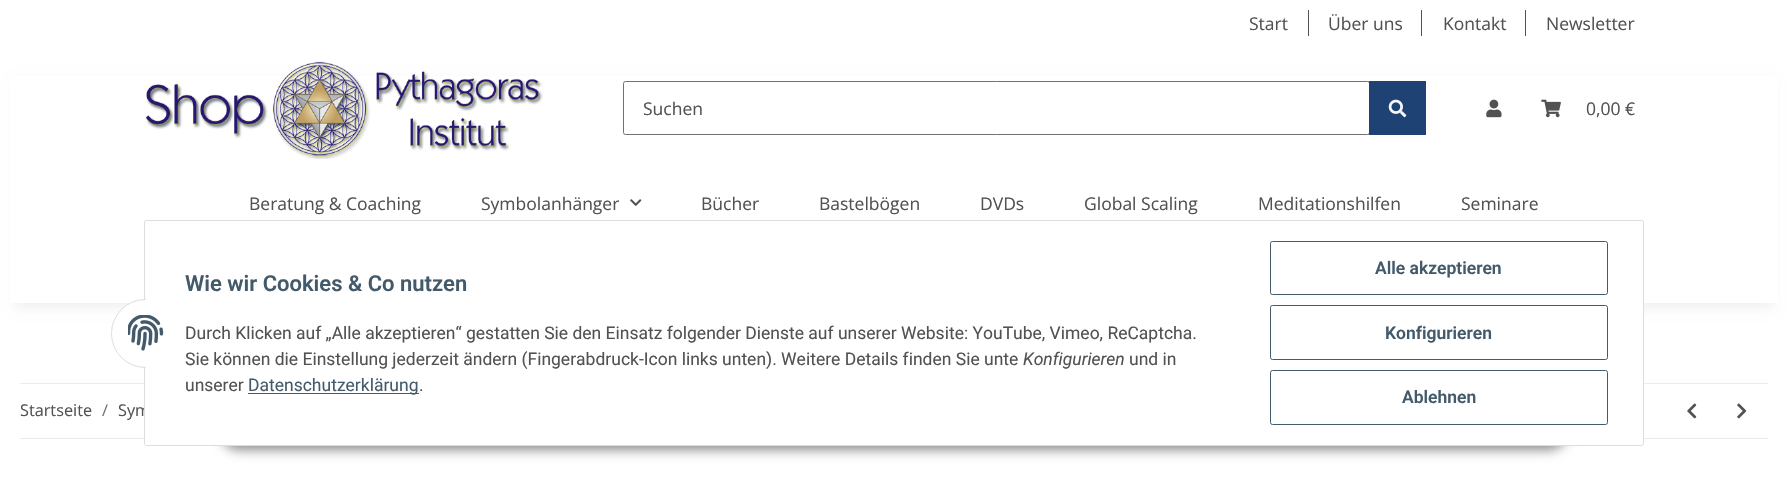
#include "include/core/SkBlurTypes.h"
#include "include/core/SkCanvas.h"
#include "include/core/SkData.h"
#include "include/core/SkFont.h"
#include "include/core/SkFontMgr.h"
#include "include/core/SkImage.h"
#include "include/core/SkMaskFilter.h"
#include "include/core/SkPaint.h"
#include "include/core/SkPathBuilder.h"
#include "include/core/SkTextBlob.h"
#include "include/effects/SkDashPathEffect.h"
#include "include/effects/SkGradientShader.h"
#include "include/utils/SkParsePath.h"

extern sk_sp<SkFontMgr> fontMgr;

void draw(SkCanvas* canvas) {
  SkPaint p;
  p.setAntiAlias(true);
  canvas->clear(SK_ColorWHITE);
  p.setColor(SkColorSetRGB(82, 82, 82));
  canvas->drawRect(SkRect::MakeLTRB(1308, 10, 1309, 36), p);
  canvas->drawRect(SkRect::MakeLTRB(1421, 10, 1422, 36), p);
  canvas->drawRect(SkRect::MakeLTRB(1525, 10, 1526, 36), p);
  p.setColor(SkColorSetARGB(15, 0, 0, 0));
  p.setMaskFilter(SkMaskFilter::MakeBlur(kNormal_SkBlurStyle, 5.5f));
  canvas->drawRect(SkRect::MakeLTRB(15, 81, 1773, 308), p);
  p.setMaskFilter(nullptr);
  p.setColor(SK_ColorWHITE);
  canvas->drawRect(SkRect::MakeLTRB(10, 76, 1778, 303), p);
  canvas->drawImageRect(SkImages::DeferredFromEncodedData(SkData::MakeFromFileName("images/1.png")), SkRect::MakeLTRB(145, 61, 543, 159), SkSamplingOptions());
  p.setStyle(SkPaint::kStroke_Style);
  p.setStrokeWidth(1);
  p.setColor(SkColorSetRGB(112, 112, 112));
  canvas->drawRoundRect(SkRect::MakeLTRB(623.5f, 81.5f, 1369.5f, 134.5f), 2, 2, p);
  p.setStyle(SkPaint::kFill_Style);
  p.setColor(SkColorSetRGB(31, 66, 117));
  canvas->drawRect(SkRect::MakeLTRB(1369, 81, 1426, 135), p);
  canvas->drawImageRect(SkImages::DeferredFromEncodedData(SkData::MakeFromFileName("images/2.png")), SkRect::MakeLTRB(1388, 99, 1407, 118), SkSamplingOptions());
  canvas->drawImageRect(SkImages::DeferredFromEncodedData(SkData::MakeFromFileName("images/3.png")), SkRect::MakeLTRB(1486, 99, 1502, 118), SkSamplingOptions());
  canvas->drawImageRect(SkImages::DeferredFromEncodedData(SkData::MakeFromFileName("images/4.png")), SkRect::MakeLTRB(1541, 99, 1561, 118), SkSamplingOptions());
  canvas->drawImageRect(SkImages::DeferredFromEncodedData(SkData::MakeFromFileName("images/5.png")), SkRect::MakeLTRB(630, 199, 642, 206), SkSamplingOptions());
  p.setColor(SkColorSetRGB(235, 235, 235));
  canvas->drawRect(SkRect::MakeLTRB(20, 438, 1768, 439), p);
  p.setColor(SkColorSetARGB(115, 0, 0, 0));
  p.setMaskFilter(SkMaskFilter::MakeBlur(kNormal_SkBlurStyle, 6));
  canvas->drawRoundRect(SkRect::MakeLTRB(220, 410, 1568, 450), 20, 20, p);
  p.setMaskFilter(nullptr);
  p.setColor(SkColorSetRGB(235, 235, 235));
  canvas->drawRect(SkRect::MakeLTRB(20, 383, 1768, 384), p);
  canvas->drawImageRect(SkImages::DeferredFromEncodedData(SkData::MakeFromFileName("images/7.png")), SkRect::MakeLTRB(1687, 403, 1697, 419), SkSamplingOptions());
  canvas->drawImageRect(SkImages::DeferredFromEncodedData(SkData::MakeFromFileName("images/8.png")), SkRect::MakeLTRB(1737, 403, 1747, 419), SkSamplingOptions());
  SkFont font1(fontMgr->matchFamilyStyle("Open Sans", SkFontStyle::Normal()), 17.5f);
  font1.setSubpixel(true);
  p.setColor(SkColorSetRGB(82, 82, 82));
  canvas->drawString("Start", 1249, 30, font1, p);
  canvas->drawString("Über uns", 1328, 30, font1, p);
  canvas->drawString("Kontakt", 1443, 30, font1, p);
  canvas->drawString("Newsletter", 1546, 30, font1, p);
  canvas->drawString("Suchen", 643, 115, font1, p);
  canvas->drawString("0,00 €", 1586, 115, font1, p);
  canvas->drawString("Beratung & Coaching", 249, 210, font1, p);
  canvas->drawString("Symbolanhänger", 481, 210, font1, p);
  canvas->drawString("Bücher", 701, 210, font1, p);
  canvas->drawString("Bastelbögen", 819, 210, font1, p);
  canvas->drawString("DVDs", 980, 210, font1, p);
  canvas->drawString("Global Scaling", 1084, 210, font1, p);
  canvas->drawString("Meditationshilfen", 1258, 210, font1, p);
  canvas->drawString("Seminare", 1461, 210, font1, p);
  SkFont font2(fontMgr->matchFamilyStyle("Open Sans", SkFontStyle::Normal()), 16.25f);
  font2.setSubpixel(true);
  canvas->drawString("Startseite", 20, 416, font2, p);
  p.setColor(SkColorSetRGB(112, 112, 112));
  canvas->drawString("/", 102, 416, font2, p);
  p.setColor(SkColorSetRGB(82, 82, 82));
  canvas->drawString("Sym", 118, 416, font2, p);
  p.setColor(SK_ColorWHITE);
  canvas->drawRoundRect(SkRect::MakeLTRB(144.5f, 220.5f, 1643.5f, 445.5f), 2, 2, p);
  p.setStyle(SkPaint::kStroke_Style);
  p.setColor(SkColorSetRGB(221, 221, 221));
  canvas->drawRoundRect(SkRect::MakeLTRB(144.5f, 220.5f, 1643.5f, 445.5f), 2, 2, p);
  p.setStyle(SkPaint::kFill_Style);
  p.setColor(SK_ColorWHITE);
  canvas->drawCircle(145.5f, 333.5f, 34, p);
  p.setStyle(SkPaint::kStroke_Style);
  p.setColor(SkColorSetRGB(221, 221, 221));
  canvas->drawCircle(145.5f, 333.5f, 34, p);
  p.setStyle(SkPaint::kFill_Style);
  p.setColor(SK_ColorWHITE);
  canvas->drawRect(SkRect::MakeLTRB(146, 299, 180, 368), p);
  canvas->drawImageRect(SkImages::DeferredFromEncodedData(SkData::MakeFromFileName("images/6.png")), SkRect::MakeLTRB(128, 315, 164, 351), SkSamplingOptions());
  p.setStyle(SkPaint::kStroke_Style);
  p.setColor(SkColorSetRGB(67, 90, 107));
  canvas->drawRoundRect(SkRect::MakeLTRB(1270.5f, 370.5f, 1607.5f, 424.5f), 2, 2, p);
  SkFont font3(fontMgr->matchFamilyStyle("Roboto", SkFontStyle(600, SkFontStyle::kNormal_Width, SkFontStyle::kUpright_Slant)), 17.5f);
  font3.setSubpixel(true);
  p.setStyle(SkPaint::kFill_Style);
  canvas->drawString("Ablehnen", 1402, 403, font3, p);
  p.setStyle(SkPaint::kStroke_Style);
  canvas->drawRoundRect(SkRect::MakeLTRB(1270.5f, 305.5f, 1607.5f, 359.5f), 2, 2, p);
  p.setStyle(SkPaint::kFill_Style);
  canvas->drawString("Konfigurieren", 1385, 339, font3, p);
  p.setStyle(SkPaint::kStroke_Style);
  canvas->drawRoundRect(SkRect::MakeLTRB(1270.5f, 241.5f, 1607.5f, 294.5f), 2, 2, p);
  p.setStyle(SkPaint::kFill_Style);
  canvas->drawString("Alle akzeptieren", 1375, 274, font3, p);
  SkFont font4(fontMgr->matchFamilyStyle("Roboto", SkFontStyle::Normal()), 17.5f);
  font4.setSubpixel(true);
  p.setColor(SkColorSetRGB(82, 82, 82));
  canvas->drawString(".", 419, 391, font4, p);
  p.setColor(SkColorSetRGB(67, 90, 107));
  canvas->drawRect(SkRect::MakeLTRB(248, 393, 419, 394), p);
  canvas->drawString("Datenschutzerklärung", 248, 391, font4, p);
  p.setColor(SkColorSetRGB(82, 82, 82));
  canvas->drawString("unserer", 185, 391, font4, p);
  canvas->drawString("und in", 1129, 365, font4, p);
  SkFont font5(fontMgr->matchFamilyStyle("Roboto", SkFontStyle::Italic()), 17.5f);
  font5.setSubpixel(true);
  canvas->drawString("Konfigurieren", 1023, 365, font5, p);
  canvas->drawString("Sie können die Einstellung jederzeit ändern (Fingerabdruck-Icon links unten). Weitere Details finden Sie unte", 185, 365, font4, p);
  canvas->drawString("Durch Klicken auf „Alle akzeptieren“ gestatten Sie den Einsatz folgender Dienste auf unserer Website: YouTube, Vimeo, ReCaptcha.", 185, 339, font4, p);
  SkFont font6(fontMgr->matchFamilyStyle("Roboto", SkFontStyle(600, SkFontStyle::kNormal_Width, SkFontStyle::kUpright_Slant)), 22);
  font6.setSubpixel(true);
  p.setColor(SkColorSetRGB(67, 90, 107));
  canvas->drawString("Wie wir Cookies & Co nutzen", 185, 291, font6, p);
}
